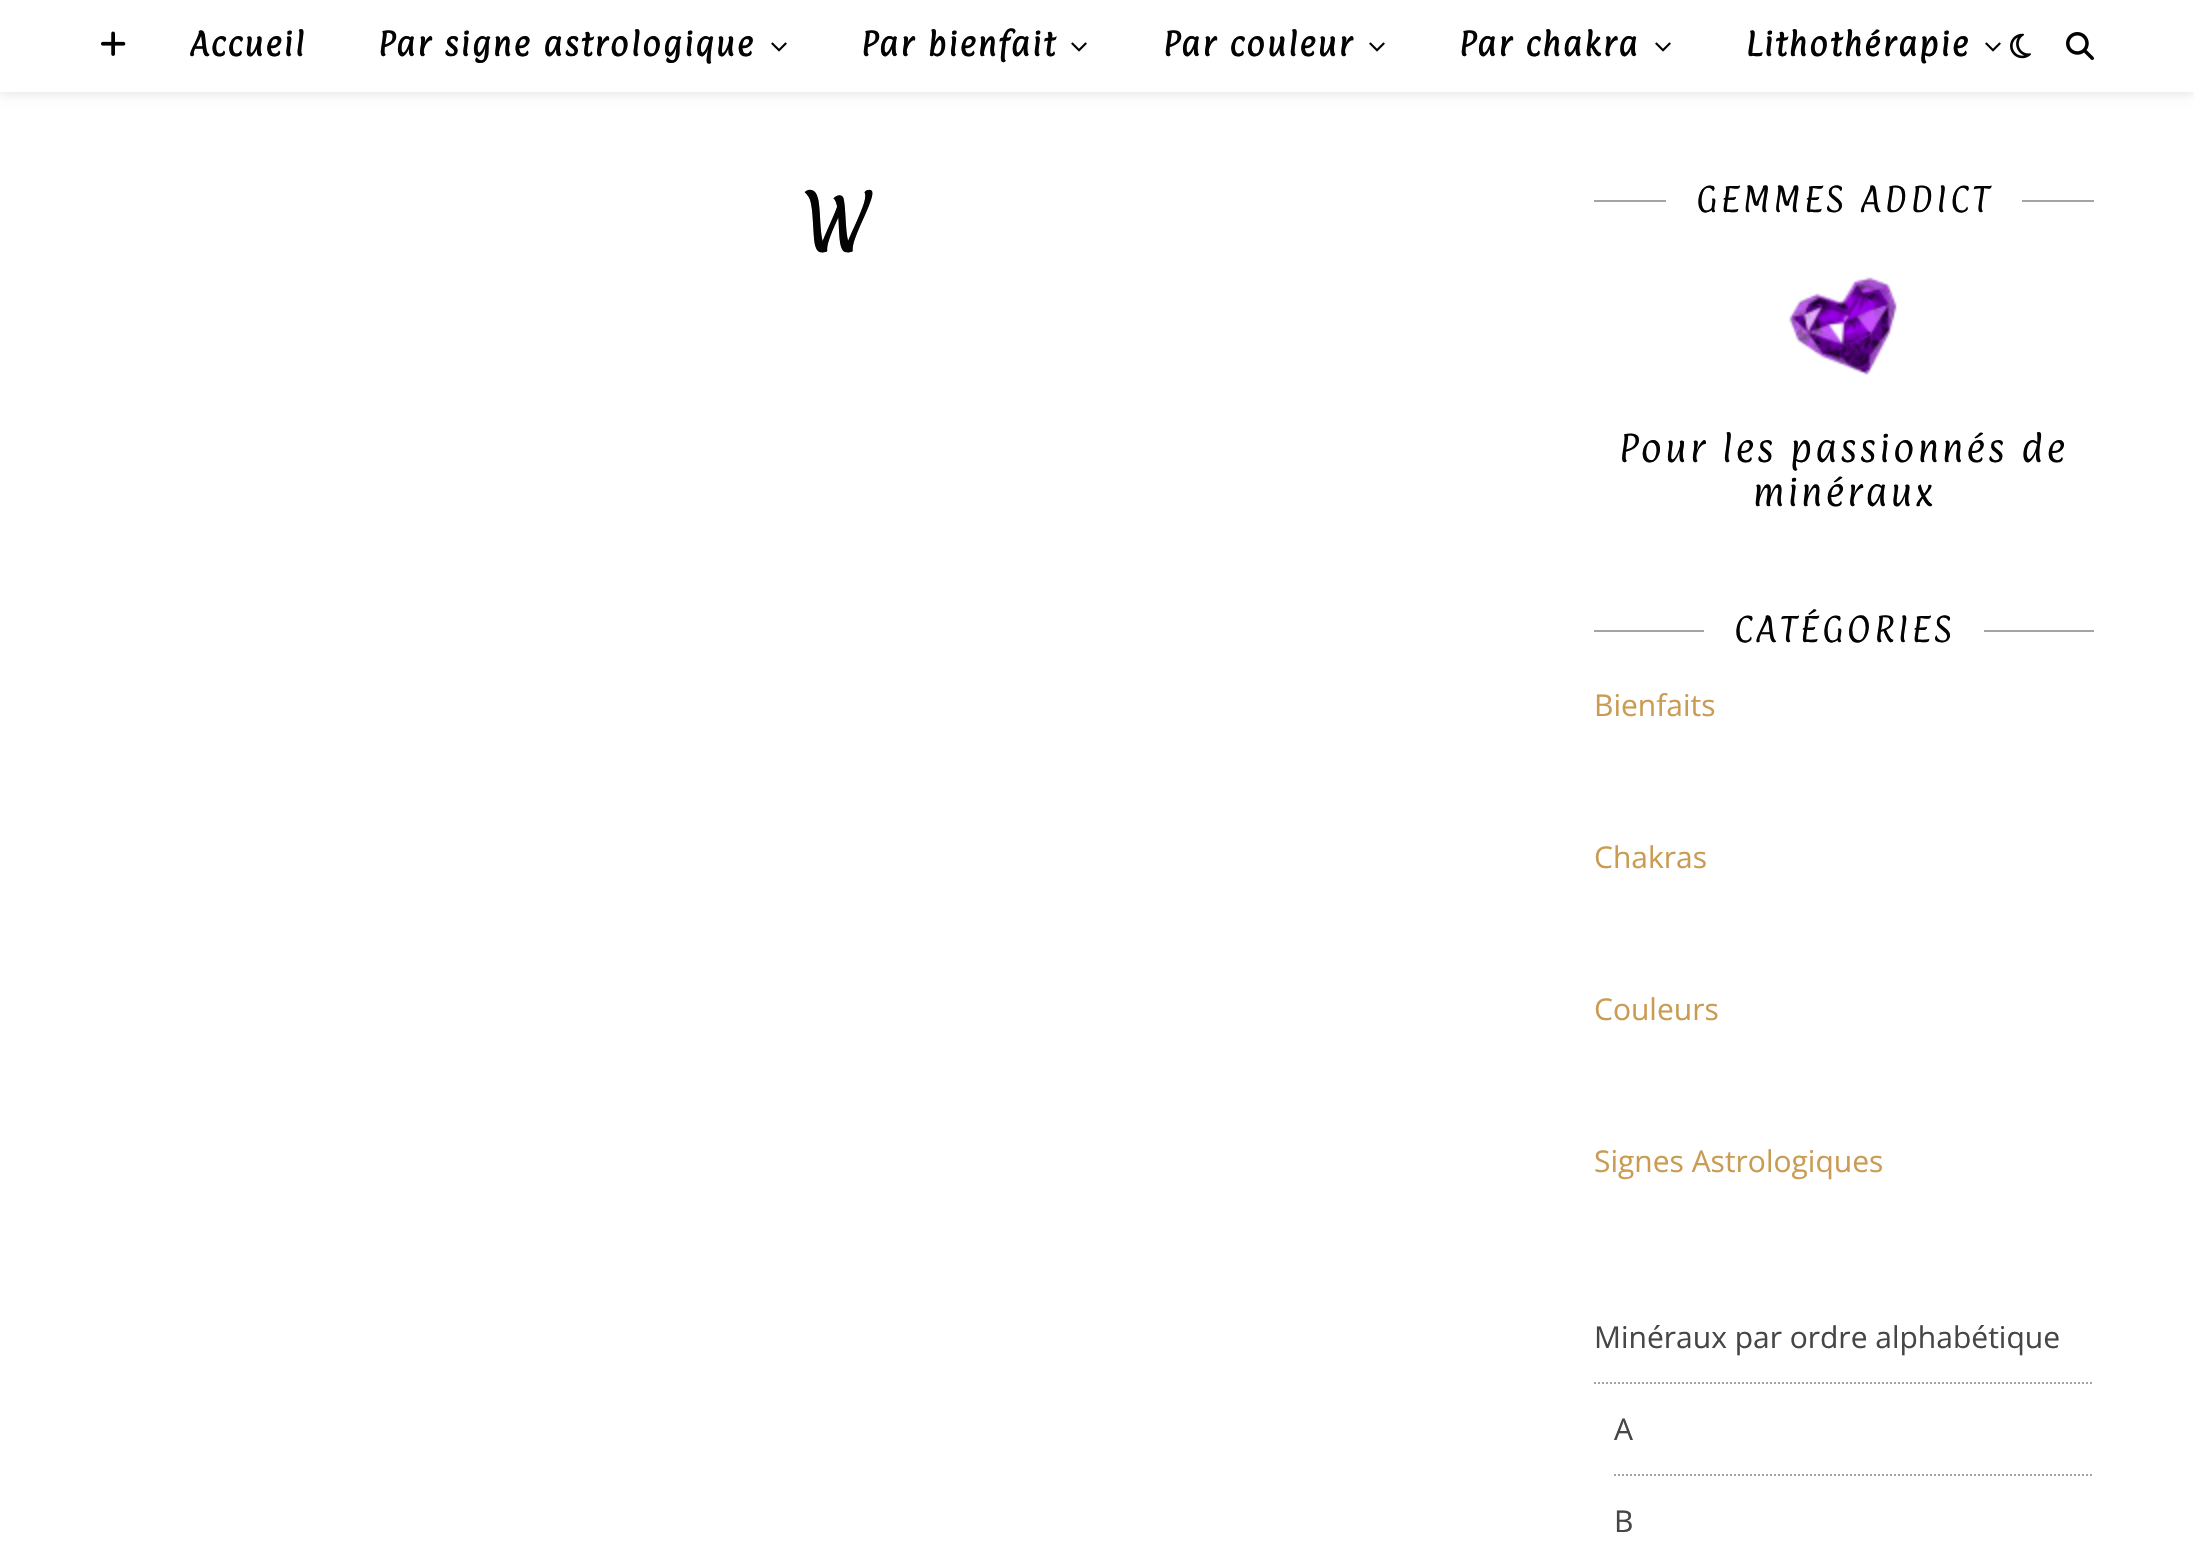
#include "include/core/SkBlurTypes.h"
#include "include/core/SkCanvas.h"
#include "include/core/SkData.h"
#include "include/core/SkFont.h"
#include "include/core/SkFontMgr.h"
#include "include/core/SkImage.h"
#include "include/core/SkMaskFilter.h"
#include "include/core/SkPaint.h"
#include "include/core/SkPathBuilder.h"
#include "include/core/SkTextBlob.h"
#include "include/effects/SkDashPathEffect.h"
#include "include/effects/SkGradientShader.h"
#include "include/utils/SkParsePath.h"

extern sk_sp<SkFontMgr> fontMgr;

void draw(SkCanvas* canvas) {
  SkPaint p;
  p.setAntiAlias(true);
  auto spacedText = [&](const char* s, float x, float y, const SkFont& font, const SkPaint& ink, float letter, float word) {
    std::vector<SkGlyphID> glyphs(font.countText(s, strlen(s), SkTextEncoding::kUTF8));
    std::vector<float> xs(glyphs.size());
    font.textToGlyphs(s, strlen(s), SkTextEncoding::kUTF8, glyphs);
    font.getXPos(glyphs, xs, x);
    float extra = 0;
    for (size_t i = 0; i < glyphs.size(); i++) {
      xs[i] += extra;
      extra += letter + word * (glyphs[i] == font.unicharToGlyph(' '));
    }
    canvas->drawTextBlob(SkTextBlob::MakeFromPosHGlyphs(glyphs, xs, y, font), 0, 0, ink);
  };
  canvas->clear(SK_ColorWHITE);
  p.setColor(SkColorSetARGB(26, 0, 0, 0));
  p.setMaskFilter(SkMaskFilter::MakeBlur(kNormal_SkBlurStyle, 5));
  canvas->drawRect(SkRect::MakeLTRB(0, 2, 2194, 94), p);
  p.setMaskFilter(nullptr);
  p.setColor(SK_ColorWHITE);
  canvas->drawRect(SkRect::MakeLTRB(0, 0, 2194, 92), p);
  canvas->drawImageRect(SkImages::DeferredFromEncodedData(SkData::MakeFromFileName("images/1.png")), SkRect::MakeLTRB(101, 31, 126, 56), SkSamplingOptions());
  canvas->drawImageRect(SkImages::DeferredFromEncodedData(SkData::MakeFromFileName("images/2.png")), SkRect::MakeLTRB(771, 42, 787, 52), SkSamplingOptions());
  canvas->drawImageRect(SkImages::DeferredFromEncodedData(SkData::MakeFromFileName("images/2.png")), SkRect::MakeLTRB(1071, 42, 1087, 52), SkSamplingOptions());
  canvas->drawImageRect(SkImages::DeferredFromEncodedData(SkData::MakeFromFileName("images/2.png")), SkRect::MakeLTRB(1369, 42, 1385, 52), SkSamplingOptions());
  canvas->drawImageRect(SkImages::DeferredFromEncodedData(SkData::MakeFromFileName("images/2.png")), SkRect::MakeLTRB(1655, 42, 1671, 52), SkSamplingOptions());
  canvas->drawImageRect(SkImages::DeferredFromEncodedData(SkData::MakeFromFileName("images/2.png")), SkRect::MakeLTRB(1985, 42, 2001, 52), SkSamplingOptions());
  canvas->drawImageRect(SkImages::DeferredFromEncodedData(SkData::MakeFromFileName("images/3.png")), SkRect::MakeLTRB(2010, 33, 2031, 59), SkSamplingOptions());
  canvas->drawImageRect(SkImages::DeferredFromEncodedData(SkData::MakeFromFileName("images/4.png")), SkRect::MakeLTRB(2066, 32, 2094, 60), SkSamplingOptions());
  p.setColor(SkColorSetRGB(165, 165, 165));
  canvas->drawRect(SkRect::MakeLTRB(1594, 200, 1666, 202), p);
  canvas->drawRect(SkRect::MakeLTRB(2022, 200, 2094, 202), p);
  canvas->drawImageRect(SkImages::DeferredFromEncodedData(SkData::MakeFromFileName("images/5.png")), SkRect::MakeLTRB(1789, 277, 1897, 375), SkSamplingOptions());
  canvas->drawRect(SkRect::MakeLTRB(1594, 630, 1704, 632), p);
  canvas->drawRect(SkRect::MakeLTRB(1984, 630, 2094, 632), p);
  p.setStyle(SkPaint::kStroke_Style);
  p.setStrokeWidth(2);
  p.setPathEffect(SkDashPathEffect::Make({{2, 2}}, 0));
  canvas->drawPath(SkPathBuilder().moveTo(1594, 1383).lineTo(2094, 1383).detach(), p);
  p.setPathEffect(nullptr);
  p.setPathEffect(SkDashPathEffect::Make({{2, 2}}, 0));
  canvas->drawPath(SkPathBuilder().moveTo(1614, 1475).lineTo(2094, 1475).detach(), p);
  p.setPathEffect(nullptr);
  SkFont font1(fontMgr->matchFamilyStyle("Paprika", SkFontStyle::Bold()), 28);
  font1.setSubpixel(true);
  p.setStyle(SkPaint::kFill_Style);
  p.setColor(SkColorSetRGB(3, 3, 3));
  spacedText("Accueil", 190, 56, font1, p, 2, 0);
  spacedText("Par signe astrologique", 378, 56, font1, p, 2, 0);
  spacedText("Par bienfait", 861, 56, font1, p, 2, 0);
  spacedText("Par couleur", 1163, 56, font1, p, 2, 0);
  spacedText("Par chakra", 1459, 56, font1, p, 2, 0);
  spacedText("Lithothérapie", 1746, 56, font1, p, 2, 0);
  SkFont font2(fontMgr->matchFamilyStyle("Paprika", SkFontStyle::Normal()), 70);
  font2.setSubpixel(true);
  spacedText("W", 803, 252, font2, p, 2, 0);
  SkFont font3(fontMgr->matchFamilyStyle("Paprika", SkFontStyle::Normal()), 30);
  font3.setSubpixel(true);
  spacedText("GEMMES ADDICT", 1696, 212, font3, p, 4, 0);
  SkFont font4(fontMgr->matchFamilyStyle("Paprika", SkFontStyle::Normal()), 32);
  font4.setSubpixel(true);
  spacedText("Pour les passionnés de", 1619, 462, font4, p, 3, 0);
  spacedText("minéraux", 1753, 506, font4, p, 3, 0);
  spacedText("CATÉGORIES", 1734, 642, font3, p, 4, 0);
  SkFont font5(fontMgr->matchFamilyStyle("Open Sans", SkFontStyle::Normal()), 30);
  font5.setSubpixel(true);
  p.setColor(SkColorSetRGB(202, 155, 82));
  canvas->drawString("Bienfaits", 1594, 716, font5, p);
  canvas->drawString("Chakras", 1594, 868, font5, p);
  canvas->drawString("Couleurs", 1594, 1020, font5, p);
  canvas->drawString("Signes Astrologiques", 1594, 1172, font5, p);
  p.setColor(SkColorSetRGB(70, 70, 70));
  canvas->drawString("Minéraux par ordre alphabétique", 1594, 1348, font5, p);
  canvas->drawString("A", 1614, 1440, font5, p);
  canvas->drawString("B", 1614, 1532, font5, p);
}
